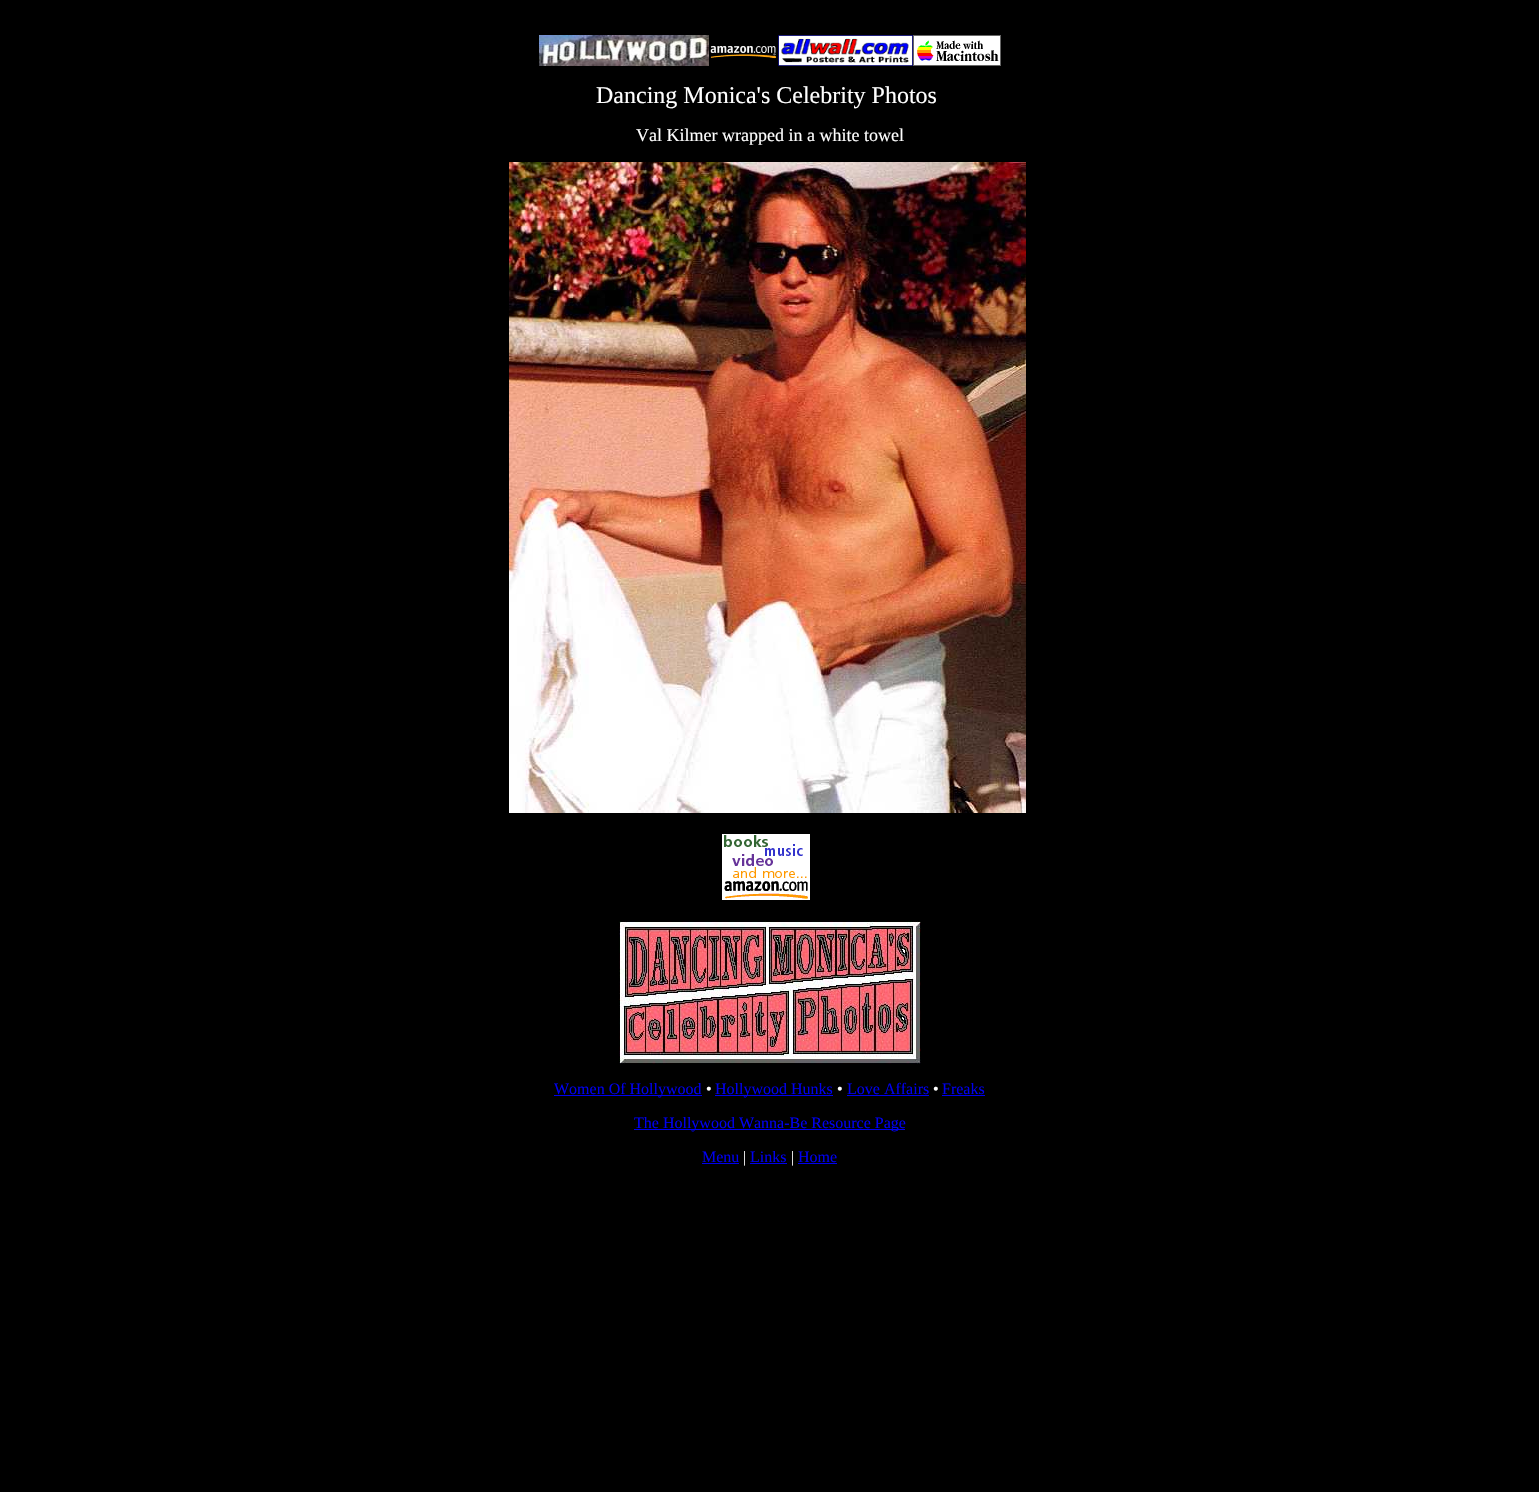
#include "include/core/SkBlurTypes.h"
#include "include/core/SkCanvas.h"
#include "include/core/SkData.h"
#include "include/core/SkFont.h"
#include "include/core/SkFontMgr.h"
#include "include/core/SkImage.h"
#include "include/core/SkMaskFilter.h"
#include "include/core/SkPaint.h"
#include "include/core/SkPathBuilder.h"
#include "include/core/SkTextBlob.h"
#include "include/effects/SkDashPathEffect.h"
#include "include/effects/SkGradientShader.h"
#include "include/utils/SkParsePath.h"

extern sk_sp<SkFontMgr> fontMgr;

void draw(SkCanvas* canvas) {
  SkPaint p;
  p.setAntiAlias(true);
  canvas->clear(SK_ColorBLACK);
  canvas->drawImageRect(SkImages::DeferredFromEncodedData(SkData::MakeFromFileName("images/1.png")), SkRect::MakeLTRB(539, 35, 709, 66), SkSamplingOptions());
  canvas->drawImageRect(SkImages::DeferredFromEncodedData(SkData::MakeFromFileName("images/2.png")), SkRect::MakeLTRB(710, 45, 777, 59), SkSamplingOptions());
  canvas->drawImageRect(SkImages::DeferredFromEncodedData(SkData::MakeFromFileName("images/3.png")), SkRect::MakeLTRB(778, 35, 913, 66), SkSamplingOptions());
  canvas->drawImageRect(SkImages::DeferredFromEncodedData(SkData::MakeFromFileName("images/4.png")), SkRect::MakeLTRB(913, 35, 1001, 66), SkSamplingOptions());
  canvas->drawImageRect(SkImages::DeferredFromEncodedData(SkData::MakeFromFileName("images/5.png")), SkRect::MakeLTRB(509, 162, 1026, 813), SkSamplingOptions());
  canvas->drawImageRect(SkImages::DeferredFromEncodedData(SkData::MakeFromFileName("images/6.png")), SkRect::MakeLTRB(722, 834, 810, 900), SkSamplingOptions());
  canvas->drawImageRect(SkImages::DeferredFromEncodedData(SkData::MakeFromFileName("images/7.png")), SkRect::MakeLTRB(619, 921, 921, 1064), SkSamplingOptions());
  p.setColor(SkColorSetRGB(0, 0, 238));
  canvas->drawRect(SkRect::MakeLTRB(554, 1095, 702, 1096), p);
  canvas->drawRect(SkRect::MakeLTRB(715, 1095, 833, 1096), p);
  canvas->drawRect(SkRect::MakeLTRB(847, 1095, 929, 1096), p);
  canvas->drawRect(SkRect::MakeLTRB(942, 1095, 985, 1096), p);
  canvas->drawRect(SkRect::MakeLTRB(634, 1129, 905, 1130), p);
  canvas->drawRect(SkRect::MakeLTRB(702, 1163, 739, 1164), p);
  canvas->drawRect(SkRect::MakeLTRB(750, 1163, 787, 1164), p);
  canvas->drawRect(SkRect::MakeLTRB(798, 1163, 837, 1164), p);
  SkFont font1(fontMgr->matchFamilyStyle("Liberation Serif", SkFontStyle::Normal()), 24);
  font1.setSubpixel(true);
  p.setColor(SK_ColorWHITE);
  canvas->drawString("Dancing Monica's Celebrity Photos", 596, 103, font1, p);
  SkFont font2(fontMgr->matchFamilyStyle("Liberation Serif", SkFontStyle::Normal()), 18);
  font2.setSubpixel(true);
  canvas->drawString("Val Kilmer wrapped in a white towel", 636, 141, font2, p);
  SkFont font3(fontMgr->matchFamilyStyle("Liberation Serif", SkFontStyle::Normal()), 16);
  font3.setSubpixel(true);
  p.setColor(SkColorSetRGB(0, 0, 238));
  canvas->drawString("Women Of Hollywood", 554, 1094, font3, p);
  p.setColor(SK_ColorWHITE);
  canvas->drawString("•", 706, 1094, font3, p);
  p.setColor(SkColorSetRGB(0, 0, 238));
  canvas->drawString("Hollywood Hunks", 715, 1094, font3, p);
  p.setColor(SK_ColorWHITE);
  canvas->drawString("•", 837, 1094, font3, p);
  p.setColor(SkColorSetRGB(0, 0, 238));
  canvas->drawString("Love Affairs", 847, 1094, font3, p);
  p.setColor(SK_ColorWHITE);
  canvas->drawString("•", 933, 1094, font3, p);
  p.setColor(SkColorSetRGB(0, 0, 238));
  canvas->drawString("Freaks", 942, 1094, font3, p);
  canvas->drawString("The Hollywood Wanna-Be Resource Page", 634, 1128, font3, p);
  canvas->drawString("Menu", 702, 1162, font3, p);
  p.setColor(SK_ColorWHITE);
  canvas->drawString("|", 743, 1162, font3, p);
  p.setColor(SkColorSetRGB(0, 0, 238));
  canvas->drawString("Links", 750, 1162, font3, p);
  p.setColor(SK_ColorWHITE);
  canvas->drawString("|", 791, 1162, font3, p);
  p.setColor(SkColorSetRGB(0, 0, 238));
  canvas->drawString("Home", 798, 1162, font3, p);
}
